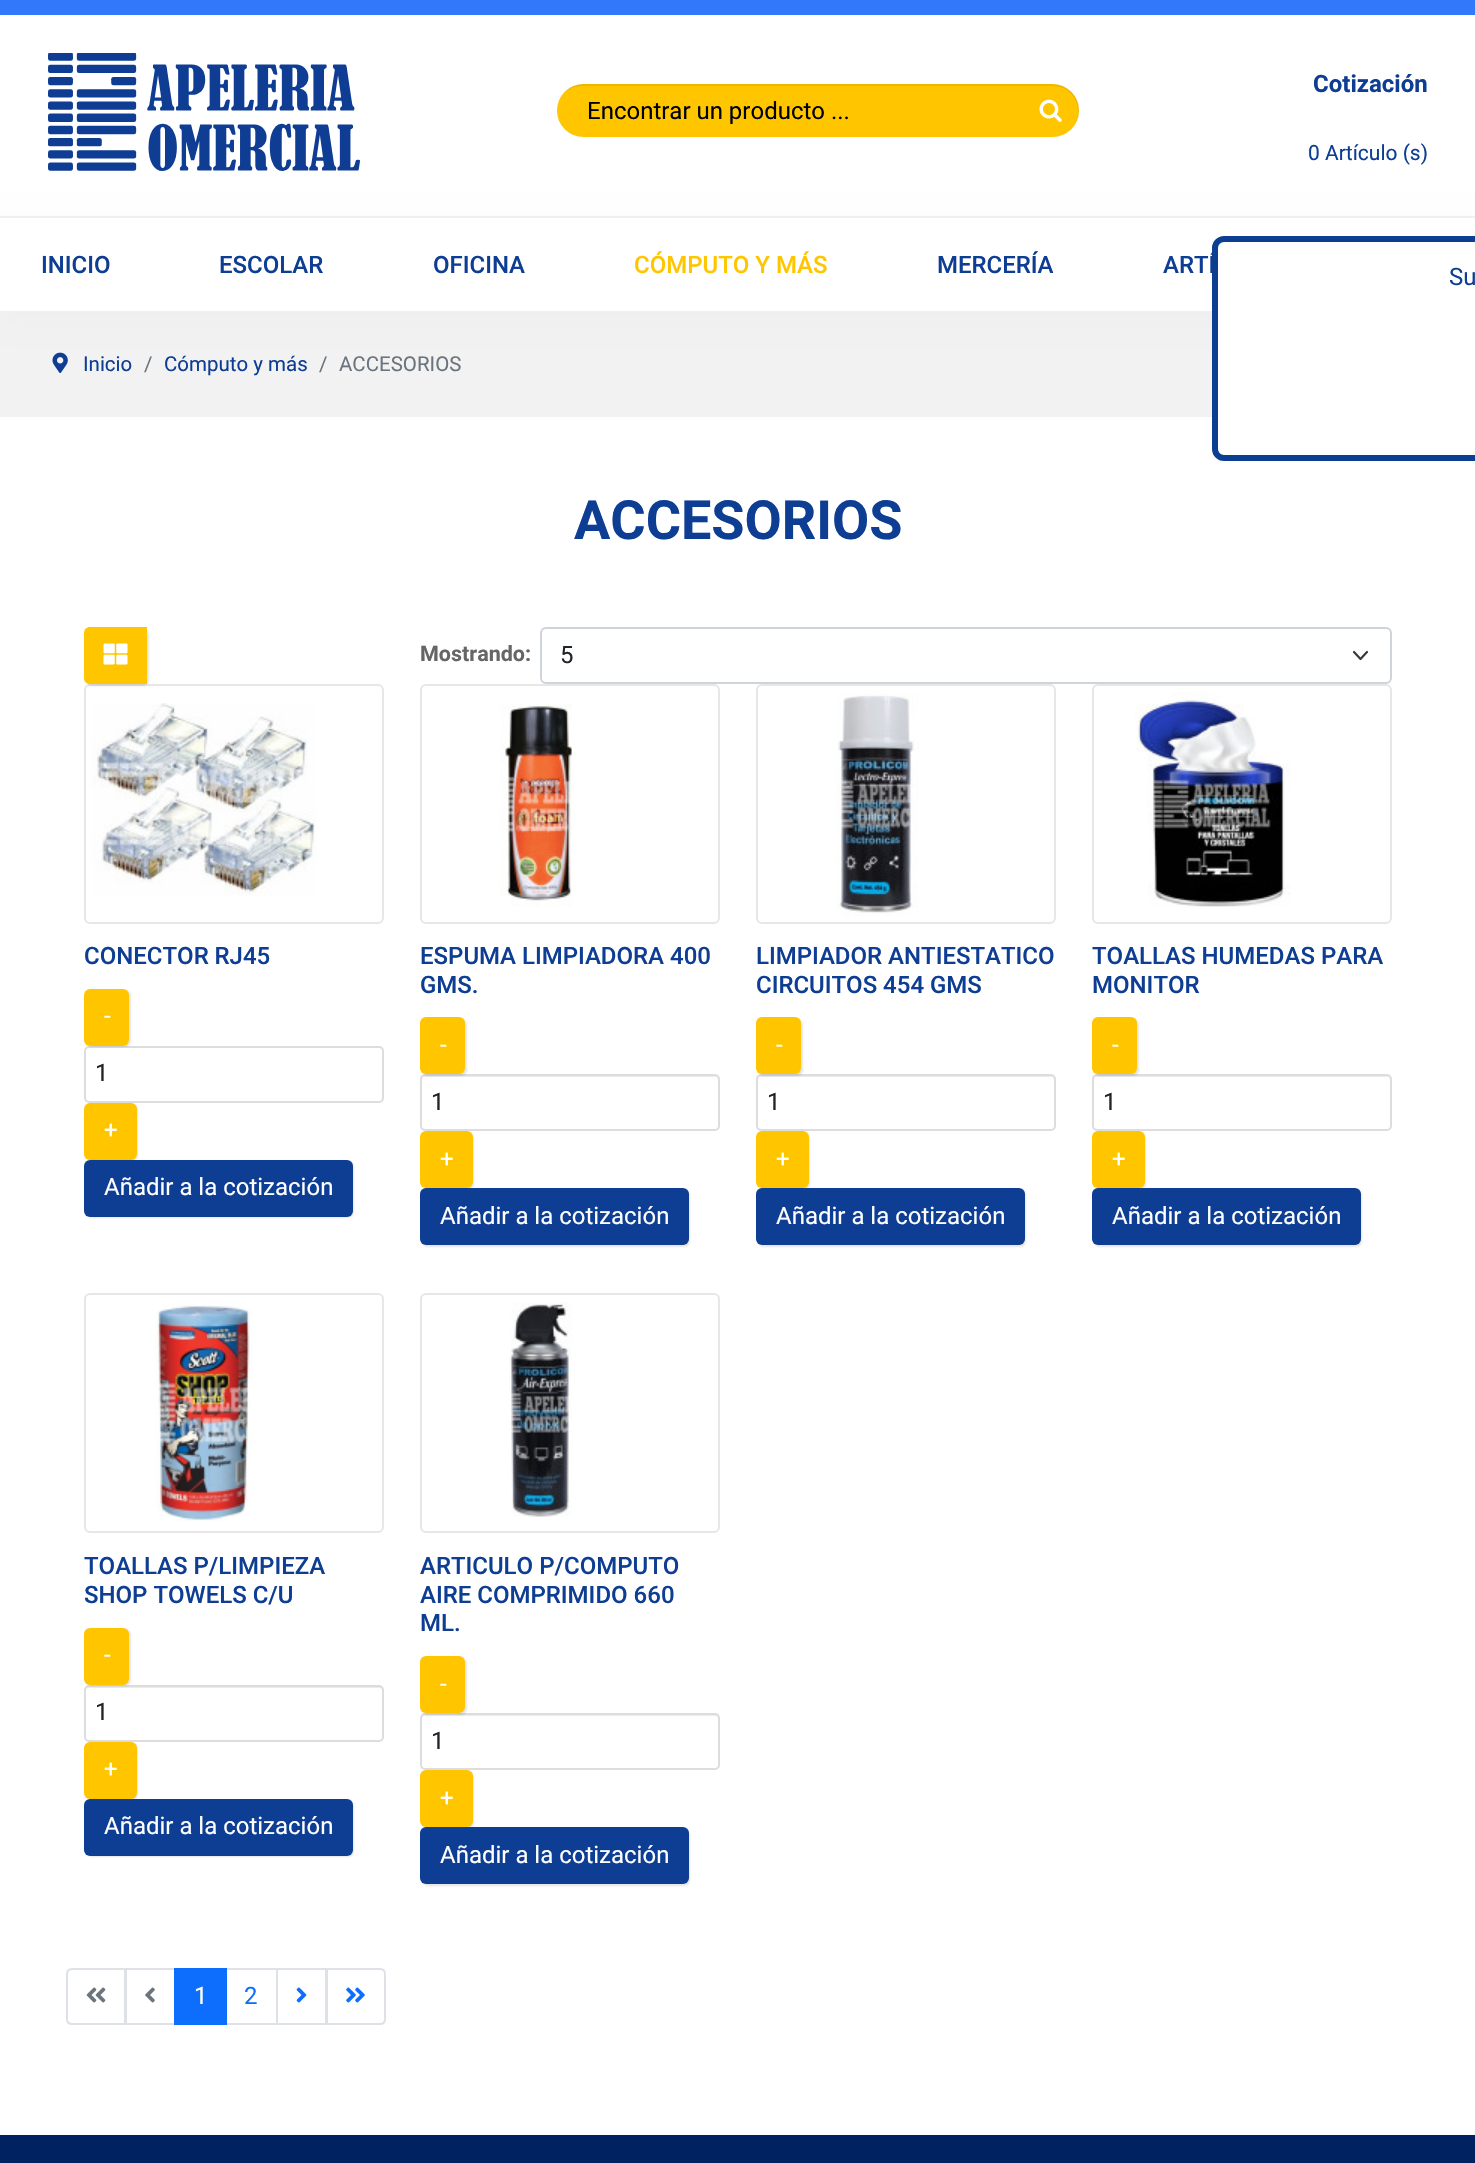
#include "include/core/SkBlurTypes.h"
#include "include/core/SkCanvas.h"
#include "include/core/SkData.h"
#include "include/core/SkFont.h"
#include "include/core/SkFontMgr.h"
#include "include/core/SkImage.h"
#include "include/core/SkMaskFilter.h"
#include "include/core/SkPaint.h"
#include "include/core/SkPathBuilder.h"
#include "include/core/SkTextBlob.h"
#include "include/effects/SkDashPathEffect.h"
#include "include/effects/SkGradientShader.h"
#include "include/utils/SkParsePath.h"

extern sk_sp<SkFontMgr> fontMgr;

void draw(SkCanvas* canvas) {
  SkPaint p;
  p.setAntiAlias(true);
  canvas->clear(SK_ColorWHITE);
  p.setColor(SkColorSetRGB(50, 120, 250));
  canvas->drawRect(SkRect::MakeLTRB(0, 0, 1475, 15), p);
  canvas->drawImageRect(SkImages::DeferredFromEncodedData(SkData::MakeFromFileName("images/1.png")), SkRect::MakeLTRB(48, 53, 360, 171), SkSamplingOptions());
  p.setColor(SkColorSetRGB(255, 198, 0));
  canvas->drawRoundRect(SkRect::MakeLTRB(557, 84, 1079, 137), 26.5f, 26.5f, p);
  p.setColor(SkColorSetARGB(18, 0, 0, 0));
  canvas->drawPath(SkPathBuilder().moveTo(583, 86).lineTo(1052, 86).cubicTo(1067, 86, 1078, 97, 1078, 112).cubicTo(1078, 117, 1076, 122, 1074, 126).cubicTo(1077, 122, 1079, 116, 1079, 110).cubicTo(1079, 96, 1067, 84, 1052, 84).lineTo(584, 84).cubicTo(574, 84, 565, 89, 561, 97).cubicTo(565, 90, 574, 86, 583, 86).close().detach(), p);
  canvas->drawImageRect(SkImages::DeferredFromEncodedData(SkData::MakeFromFileName("images/2.png")), SkRect::MakeLTRB(1039, 99, 1062, 122), SkSamplingOptions());
  p.setColor(SkColorSetRGB(242, 242, 242));
  canvas->drawRect(SkRect::MakeLTRB(0, 311, 1212, 417), p);
  canvas->drawImageRect(SkImages::DeferredFromEncodedData(SkData::MakeFromFileName("images/3.png")), SkRect::MakeLTRB(52, 352, 68, 373), SkSamplingOptions());
  p.setColor(SkColorSetRGB(239, 239, 239));
  p.setMaskFilter(SkMaskFilter::MakeBlur(kNormal_SkBlurStyle, 12));
  canvas->drawRect(SkRect::MakeLTRB(0, 228, 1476, 323), p);
  p.setMaskFilter(nullptr);
  p.setColor(SK_ColorWHITE);
  canvas->drawRect(SkRect::MakeLTRB(0, 218, 1475, 311), p);
  p.setColor(SkColorSetRGB(239, 239, 239));
  canvas->drawRect(SkRect::MakeLTRB(0, 216, 1475, 218), p);
  p.setStyle(SkPaint::kStroke_Style);
  p.setStrokeWidth(2);
  p.setColor(SkColorSetRGB(231, 231, 231));
  canvas->drawRoundRect(SkRect::MakeLTRB(85, 685, 383, 923), 5, 5, p);
  p.setStyle(SkPaint::kFill_Style);
  p.setColor(SkColorSetARGB(26, 0, 0, 0));
  p.setMaskFilter(SkMaskFilter::MakeBlur(kNormal_SkBlurStyle, 1));
  canvas->drawRoundRect(SkRect::MakeLTRB(86, 629, 149, 686), 6, 6, p);
  p.setMaskFilter(nullptr);
  p.setColor(SkColorSetRGB(255, 198, 0));
  canvas->drawPath(SkPathBuilder().moveTo(90, 627).lineTo(147, 627).lineTo(147, 684).lineTo(90, 684).cubicTo(86.5f, 684, 84, 681.5f, 84, 678).lineTo(84, 633).cubicTo(84, 629.5f, 86.5f, 627, 90, 627).close().detach(), p);
  canvas->drawImageRect(SkImages::DeferredFromEncodedData(SkData::MakeFromFileName("images/4.png")), SkRect::MakeLTRB(103, 643, 128, 665), SkSamplingOptions());
  p.setStyle(SkPaint::kStroke_Style);
  p.setStrokeWidth(2.2f);
  p.setStrokeCap(SkPaint::kRound_Cap);
  p.setStrokeJoin(SkPaint::kRound_Join);
  p.setColor(SkColorSetRGB(52, 58, 64));
  canvas->drawPath(SkPathBuilder().moveTo(1354, 652).lineTo(1360.5f, 659).lineTo(1367, 652).detach(), p);
  p.setStrokeWidth(2);
  p.setStrokeCap(SkPaint::kButt_Cap);
  p.setStrokeJoin(SkPaint::kMiter_Join);
  p.setColor(SkColorSetRGB(206, 212, 218));
  canvas->drawRoundRect(SkRect::MakeLTRB(541, 628, 1391, 683), 5, 5, p);
  canvas->drawImageRect(SkImages::DeferredFromEncodedData(SkData::MakeFromFileName("images/5.png")), SkRect::MakeLTRB(91, 703, 317, 896), SkSamplingOptions());
  p.setColor(SkColorSetRGB(221, 221, 221));
  canvas->drawRoundRect(SkRect::MakeLTRB(85, 1047, 383, 1102), 4, 4, p);
  p.setStyle(SkPaint::kFill_Style);
  p.setColor(SkColorSetARGB(26, 0, 0, 0));
  p.setMaskFilter(SkMaskFilter::MakeBlur(kNormal_SkBlurStyle, 1));
  canvas->drawRoundRect(SkRect::MakeLTRB(86, 990, 131, 1047), 6, 6, p);
  p.setMaskFilter(nullptr);
  p.setColor(SkColorSetRGB(255, 198, 0));
  canvas->drawRoundRect(SkRect::MakeLTRB(84, 989, 129, 1046), 6, 6, p);
  p.setColor(SkColorSetARGB(26, 0, 0, 0));
  p.setMaskFilter(SkMaskFilter::MakeBlur(kNormal_SkBlurStyle, 1));
  canvas->drawRoundRect(SkRect::MakeLTRB(86, 1104, 138, 1161), 6, 6, p);
  p.setMaskFilter(nullptr);
  p.setColor(SkColorSetRGB(255, 198, 0));
  canvas->drawRoundRect(SkRect::MakeLTRB(84, 1103, 137, 1160), 6, 6, p);
  p.setColor(SkColorSetARGB(26, 0, 0, 0));
  p.setMaskFilter(SkMaskFilter::MakeBlur(kNormal_SkBlurStyle, 1));
  canvas->drawRoundRect(SkRect::MakeLTRB(86, 1161, 354, 1218), 6, 6, p);
  p.setMaskFilter(nullptr);
  p.setColor(SkColorSetRGB(14, 62, 147));
  canvas->drawRoundRect(SkRect::MakeLTRB(84, 1160, 353, 1217), 6, 6, p);
  p.setStyle(SkPaint::kStroke_Style);
  p.setColor(SkColorSetRGB(231, 231, 231));
  canvas->drawRoundRect(SkRect::MakeLTRB(421, 685, 719, 923), 5, 5, p);
  canvas->drawImageRect(SkImages::DeferredFromEncodedData(SkData::MakeFromFileName("images/6.png")), SkRect::MakeLTRB(500, 704, 572, 907), SkSamplingOptions());
  p.setStyle(SkPaint::kFill_Style);
  p.setColor(SkColorSetRGB(236, 236, 236));
  canvas->drawPath(SkPathBuilder().moveTo(424, 1077).lineTo(716, 1077).cubicTo(717, 1077, 718, 1078, 718, 1080).lineTo(718, 1129).cubicTo(719, 1129, 719, 1128, 719, 1127).lineTo(719, 1079).cubicTo(719, 1077, 718, 1076, 716, 1076).lineTo(425, 1076).cubicTo(423, 1076, 422, 1077, 422, 1079).lineTo(422, 1080).cubicTo(422, 1078, 423, 1077, 424, 1077).close().detach(), p);
  p.setStyle(SkPaint::kStroke_Style);
  p.setColor(SkColorSetRGB(221, 221, 221));
  canvas->drawRoundRect(SkRect::MakeLTRB(421, 1075, 719, 1130), 4, 4, p);
  p.setStyle(SkPaint::kFill_Style);
  p.setColor(SkColorSetARGB(26, 0, 0, 0));
  p.setMaskFilter(SkMaskFilter::MakeBlur(kNormal_SkBlurStyle, 1));
  canvas->drawRoundRect(SkRect::MakeLTRB(422, 1019, 467, 1076), 6, 6, p);
  p.setMaskFilter(nullptr);
  p.setColor(SkColorSetRGB(255, 198, 0));
  canvas->drawRoundRect(SkRect::MakeLTRB(420, 1017, 465, 1074), 6, 6, p);
  p.setColor(SkColorSetARGB(26, 0, 0, 0));
  p.setMaskFilter(SkMaskFilter::MakeBlur(kNormal_SkBlurStyle, 1));
  canvas->drawRoundRect(SkRect::MakeLTRB(422, 1133, 474, 1190), 6, 6, p);
  p.setMaskFilter(nullptr);
  p.setColor(SkColorSetRGB(255, 198, 0));
  canvas->drawRoundRect(SkRect::MakeLTRB(420, 1131, 473, 1188), 6, 6, p);
  p.setColor(SkColorSetARGB(26, 0, 0, 0));
  p.setMaskFilter(SkMaskFilter::MakeBlur(kNormal_SkBlurStyle, 1));
  canvas->drawRoundRect(SkRect::MakeLTRB(422, 1190, 690, 1247), 6, 6, p);
  p.setMaskFilter(nullptr);
  p.setColor(SkColorSetRGB(14, 62, 147));
  canvas->drawRoundRect(SkRect::MakeLTRB(420, 1188, 689, 1245), 6, 6, p);
  p.setStyle(SkPaint::kStroke_Style);
  p.setColor(SkColorSetRGB(231, 231, 231));
  canvas->drawRoundRect(SkRect::MakeLTRB(757, 685, 1055, 923), 5, 5, p);
  canvas->drawImageRect(SkImages::DeferredFromEncodedData(SkData::MakeFromFileName("images/7.png")), SkRect::MakeLTRB(836, 693, 919, 916), SkSamplingOptions());
  p.setStyle(SkPaint::kFill_Style);
  p.setColor(SkColorSetRGB(236, 236, 236));
  canvas->drawPath(SkPathBuilder().moveTo(760, 1077).lineTo(1052, 1077).cubicTo(1053, 1077, 1054, 1078, 1054, 1080).lineTo(1054, 1129).cubicTo(1055, 1129, 1055, 1128, 1055, 1127).lineTo(1055, 1079).cubicTo(1055, 1077, 1054, 1076, 1052, 1076).lineTo(761, 1076).cubicTo(759, 1076, 758, 1077, 758, 1079).lineTo(758, 1080).cubicTo(758, 1078, 759, 1077, 760, 1077).close().detach(), p);
  p.setStyle(SkPaint::kStroke_Style);
  p.setColor(SkColorSetRGB(221, 221, 221));
  canvas->drawRoundRect(SkRect::MakeLTRB(757, 1075, 1055, 1130), 4, 4, p);
  p.setStyle(SkPaint::kFill_Style);
  p.setColor(SkColorSetARGB(26, 0, 0, 0));
  p.setMaskFilter(SkMaskFilter::MakeBlur(kNormal_SkBlurStyle, 1));
  canvas->drawRoundRect(SkRect::MakeLTRB(758, 1019, 803, 1076), 6, 6, p);
  p.setMaskFilter(nullptr);
  p.setColor(SkColorSetRGB(255, 198, 0));
  canvas->drawRoundRect(SkRect::MakeLTRB(756, 1017, 801, 1074), 6, 6, p);
  p.setColor(SkColorSetARGB(26, 0, 0, 0));
  p.setMaskFilter(SkMaskFilter::MakeBlur(kNormal_SkBlurStyle, 1));
  canvas->drawRoundRect(SkRect::MakeLTRB(758, 1133, 810, 1190), 6, 6, p);
  p.setMaskFilter(nullptr);
  p.setColor(SkColorSetRGB(255, 198, 0));
  canvas->drawRoundRect(SkRect::MakeLTRB(756, 1131, 809, 1188), 6, 6, p);
  p.setColor(SkColorSetARGB(26, 0, 0, 0));
  p.setMaskFilter(SkMaskFilter::MakeBlur(kNormal_SkBlurStyle, 1));
  canvas->drawRoundRect(SkRect::MakeLTRB(758, 1190, 1026, 1247), 6, 6, p);
  p.setMaskFilter(nullptr);
  p.setColor(SkColorSetRGB(14, 62, 147));
  canvas->drawRoundRect(SkRect::MakeLTRB(756, 1188, 1025, 1245), 6, 6, p);
  p.setStyle(SkPaint::kStroke_Style);
  p.setColor(SkColorSetRGB(231, 231, 231));
  canvas->drawRoundRect(SkRect::MakeLTRB(1093, 685, 1391, 923), 5, 5, p);
  canvas->drawImageRect(SkImages::DeferredFromEncodedData(SkData::MakeFromFileName("images/8.png")), SkRect::MakeLTRB(1135, 692, 1291, 907), SkSamplingOptions());
  p.setStyle(SkPaint::kFill_Style);
  p.setColor(SkColorSetRGB(236, 236, 236));
  canvas->drawPath(SkPathBuilder().moveTo(1096, 1077).lineTo(1388, 1077).cubicTo(1389, 1077, 1390, 1078, 1390, 1080).lineTo(1390, 1129).cubicTo(1391, 1129, 1391, 1128, 1391, 1127).lineTo(1391, 1079).cubicTo(1391, 1077, 1390, 1076, 1388, 1076).lineTo(1097, 1076).cubicTo(1095, 1076, 1094, 1077, 1094, 1079).lineTo(1094, 1080).cubicTo(1094, 1078, 1095, 1077, 1096, 1077).close().detach(), p);
  p.setStyle(SkPaint::kStroke_Style);
  p.setColor(SkColorSetRGB(221, 221, 221));
  canvas->drawRoundRect(SkRect::MakeLTRB(1093, 1075, 1391, 1130), 4, 4, p);
  p.setStyle(SkPaint::kFill_Style);
  p.setColor(SkColorSetARGB(26, 0, 0, 0));
  p.setMaskFilter(SkMaskFilter::MakeBlur(kNormal_SkBlurStyle, 1));
  canvas->drawRoundRect(SkRect::MakeLTRB(1094, 1019, 1139, 1076), 6, 6, p);
  p.setMaskFilter(nullptr);
  p.setColor(SkColorSetRGB(255, 198, 0));
  canvas->drawRoundRect(SkRect::MakeLTRB(1092, 1017, 1137, 1074), 6, 6, p);
  p.setColor(SkColorSetARGB(26, 0, 0, 0));
  p.setMaskFilter(SkMaskFilter::MakeBlur(kNormal_SkBlurStyle, 1));
  canvas->drawRoundRect(SkRect::MakeLTRB(1094, 1133, 1146, 1190), 6, 6, p);
  p.setMaskFilter(nullptr);
  p.setColor(SkColorSetRGB(255, 198, 0));
  canvas->drawRoundRect(SkRect::MakeLTRB(1092, 1131, 1145, 1188), 6, 6, p);
  p.setColor(SkColorSetARGB(26, 0, 0, 0));
  p.setMaskFilter(SkMaskFilter::MakeBlur(kNormal_SkBlurStyle, 1));
  canvas->drawRoundRect(SkRect::MakeLTRB(1094, 1190, 1362, 1247), 6, 6, p);
  p.setMaskFilter(nullptr);
  p.setColor(SkColorSetRGB(14, 62, 147));
  canvas->drawRoundRect(SkRect::MakeLTRB(1092, 1188, 1361, 1245), 6, 6, p);
  p.setStyle(SkPaint::kStroke_Style);
  p.setColor(SkColorSetRGB(231, 231, 231));
  canvas->drawRoundRect(SkRect::MakeLTRB(85, 1294, 383, 1532), 5, 5, p);
  canvas->drawImageRect(SkImages::DeferredFromEncodedData(SkData::MakeFromFileName("images/9.png")), SkRect::MakeLTRB(155, 1301, 253, 1522), SkSamplingOptions());
  p.setStyle(SkPaint::kFill_Style);
  p.setColor(SkColorSetRGB(236, 236, 236));
  canvas->drawPath(SkPathBuilder().moveTo(88, 1688).lineTo(380, 1688).cubicTo(381, 1688, 382, 1689, 382, 1690).lineTo(382, 1739).cubicTo(383, 1739, 383, 1738, 383, 1737).lineTo(383, 1689).cubicTo(383, 1687, 382, 1686, 380, 1686).lineTo(89, 1686).cubicTo(87, 1686, 86, 1687, 86, 1689).lineTo(86, 1690).cubicTo(86, 1689, 87, 1688, 88, 1688).close().detach(), p);
  p.setStyle(SkPaint::kStroke_Style);
  p.setColor(SkColorSetRGB(221, 221, 221));
  canvas->drawRoundRect(SkRect::MakeLTRB(85, 1686, 383, 1741), 4, 4, p);
  p.setStyle(SkPaint::kFill_Style);
  p.setColor(SkColorSetARGB(26, 0, 0, 0));
  p.setMaskFilter(SkMaskFilter::MakeBlur(kNormal_SkBlurStyle, 1));
  canvas->drawRoundRect(SkRect::MakeLTRB(86, 1629, 131, 1686), 6, 6, p);
  p.setMaskFilter(nullptr);
  p.setColor(SkColorSetRGB(255, 198, 0));
  canvas->drawRoundRect(SkRect::MakeLTRB(84, 1628, 129, 1685), 6, 6, p);
  p.setColor(SkColorSetARGB(26, 0, 0, 0));
  p.setMaskFilter(SkMaskFilter::MakeBlur(kNormal_SkBlurStyle, 1));
  canvas->drawRoundRect(SkRect::MakeLTRB(86, 1743, 138, 1800), 6, 6, p);
  p.setMaskFilter(nullptr);
  p.setColor(SkColorSetRGB(255, 198, 0));
  canvas->drawRoundRect(SkRect::MakeLTRB(84, 1742, 137, 1799), 6, 6, p);
  p.setColor(SkColorSetARGB(26, 0, 0, 0));
  p.setMaskFilter(SkMaskFilter::MakeBlur(kNormal_SkBlurStyle, 1));
  canvas->drawRoundRect(SkRect::MakeLTRB(86, 1800, 354, 1857), 6, 6, p);
  p.setMaskFilter(nullptr);
  p.setColor(SkColorSetRGB(14, 62, 147));
  canvas->drawRoundRect(SkRect::MakeLTRB(84, 1799, 353, 1856), 6, 6, p);
  p.setStyle(SkPaint::kStroke_Style);
  p.setColor(SkColorSetRGB(231, 231, 231));
  canvas->drawRoundRect(SkRect::MakeLTRB(421, 1294, 719, 1532), 5, 5, p);
  canvas->drawImageRect(SkImages::DeferredFromEncodedData(SkData::MakeFromFileName("images/10.png")), SkRect::MakeLTRB(509, 1302, 572, 1517), SkSamplingOptions());
  p.setStyle(SkPaint::kFill_Style);
  p.setColor(SkColorSetRGB(236, 236, 236));
  canvas->drawPath(SkPathBuilder().moveTo(424, 1716).lineTo(716, 1716).cubicTo(717, 1716, 718, 1717, 718, 1719).lineTo(718, 1768).cubicTo(719, 1768, 719, 1767, 719, 1766).lineTo(719, 1718).cubicTo(719, 1716, 718, 1715, 716, 1715).lineTo(425, 1715).cubicTo(423, 1715, 422, 1716, 422, 1718).lineTo(422, 1719).cubicTo(422, 1717, 423, 1716, 424, 1716).close().detach(), p);
  p.setStyle(SkPaint::kStroke_Style);
  p.setColor(SkColorSetRGB(221, 221, 221));
  canvas->drawRoundRect(SkRect::MakeLTRB(421, 1714, 719, 1769), 4, 4, p);
  p.setStyle(SkPaint::kFill_Style);
  p.setColor(SkColorSetARGB(26, 0, 0, 0));
  p.setMaskFilter(SkMaskFilter::MakeBlur(kNormal_SkBlurStyle, 1));
  canvas->drawRoundRect(SkRect::MakeLTRB(422, 1658, 467, 1715), 6, 6, p);
  p.setMaskFilter(nullptr);
  p.setColor(SkColorSetRGB(255, 198, 0));
  canvas->drawRoundRect(SkRect::MakeLTRB(420, 1656, 465, 1713), 6, 6, p);
  p.setColor(SkColorSetARGB(26, 0, 0, 0));
  p.setMaskFilter(SkMaskFilter::MakeBlur(kNormal_SkBlurStyle, 1));
  canvas->drawRoundRect(SkRect::MakeLTRB(422, 1772, 474, 1829), 6, 6, p);
  p.setMaskFilter(nullptr);
  p.setColor(SkColorSetRGB(255, 198, 0));
  canvas->drawRoundRect(SkRect::MakeLTRB(420, 1770, 473, 1827), 6, 6, p);
  p.setColor(SkColorSetARGB(26, 0, 0, 0));
  p.setMaskFilter(SkMaskFilter::MakeBlur(kNormal_SkBlurStyle, 1));
  canvas->drawRoundRect(SkRect::MakeLTRB(422, 1829, 690, 1886), 6, 6, p);
  p.setMaskFilter(nullptr);
  p.setColor(SkColorSetRGB(14, 62, 147));
  canvas->drawRoundRect(SkRect::MakeLTRB(420, 1827, 689, 1884), 6, 6, p);
  p.setStyle(SkPaint::kStroke_Style);
  p.setColor(SkColorSetRGB(222, 226, 230));
  canvas->drawPath(SkPathBuilder().moveTo(72, 1969).lineTo(125, 1969).lineTo(125, 2024).lineTo(72, 2024).cubicTo(69, 2024, 67, 2022, 67, 2019).lineTo(67, 1974).cubicTo(67, 1971, 69, 1969, 72, 1969).close().detach(), p);
  canvas->drawImageRect(SkImages::DeferredFromEncodedData(SkData::MakeFromFileName("images/11.png")), SkRect::MakeLTRB(86, 1987, 106, 2003), SkSamplingOptions());
  canvas->drawRect(SkRect::MakeLTRB(126, 1969, 175, 2024), p);
  canvas->drawImageRect(SkImages::DeferredFromEncodedData(SkData::MakeFromFileName("images/12.png")), SkRect::MakeLTRB(145, 1987, 155, 2003), SkSamplingOptions());
  canvas->drawRect(SkRect::MakeLTRB(226, 1969, 277, 2024), p);
  p.setStyle(SkPaint::kFill_Style);
  p.setColor(SkColorSetRGB(13, 110, 253));
  canvas->drawRect(SkRect::MakeLTRB(174, 1968, 227, 2025), p);
  p.setStyle(SkPaint::kStroke_Style);
  p.setColor(SkColorSetRGB(222, 226, 230));
  canvas->drawRect(SkRect::MakeLTRB(277, 1969, 326, 2024), p);
  canvas->drawImageRect(SkImages::DeferredFromEncodedData(SkData::MakeFromFileName("images/13.png")), SkRect::MakeLTRB(296, 1987, 307, 2003), SkSamplingOptions());
  p.setStyle(SkPaint::kFill_Style);
  p.setColor(SK_ColorWHITE);
  canvas->drawPath(SkPathBuilder().moveTo(327, 1969).lineTo(380, 1969).cubicTo(383, 1969, 385, 1971, 385, 1974).lineTo(385, 2019).cubicTo(385, 2022, 383, 2024, 380, 2024).lineTo(327, 2024).close().detach(), p);
  p.setStyle(SkPaint::kStroke_Style);
  p.setColor(SkColorSetRGB(222, 226, 230));
  canvas->drawPath(SkPathBuilder().moveTo(327, 1969).lineTo(380, 1969).cubicTo(383, 1969, 385, 1971, 385, 1974).lineTo(385, 2019).cubicTo(385, 2022, 383, 2024, 380, 2024).lineTo(327, 2024).close().detach(), p);
  canvas->drawImageRect(SkImages::DeferredFromEncodedData(SkData::MakeFromFileName("images/14.png")), SkRect::MakeLTRB(346, 1987, 365, 2003), SkSamplingOptions());
  p.setStyle(SkPaint::kFill_Style);
  p.setColor(SkColorSetRGB(0, 34, 97));
  canvas->drawRect(SkRect::MakeLTRB(0, 2135, 1475, 2163), p);
  SkFont font1(fontMgr->matchFamilyStyle("Roboto", SkFontStyle::Normal()), 24);
  font1.setSubpixel(true);
  p.setColor(SK_ColorBLACK);
  canvas->drawString("Encontrar un producto ...", 587, 119, font1, p);
  SkFont font2(fontMgr->matchFamilyStyle("Roboto", SkFontStyle::Bold()), 24);
  font2.setSubpixel(true);
  p.setColor(SkColorSetRGB(14, 62, 147));
  canvas->drawString("Cotización", 1313, 92, font2, p);
  SkFont font3(fontMgr->matchFamilyStyle("Roboto", SkFontStyle::Normal()), 21);
  font3.setSubpixel(true);
  canvas->drawString("0 Artículo (s)", 1308, 160, font3, p);
  SkFont font4(fontMgr->matchFamilyStyle("Roboto", SkFontStyle(500, SkFontStyle::kNormal_Width, SkFontStyle::kUpright_Slant)), 24);
  font4.setSubpixel(true);
  canvas->drawString("INICIO", 41, 273, font4, p);
  canvas->drawString("ESCOLAR", 219, 273, font4, p);
  canvas->drawString("OFICINA", 433, 273, font4, p);
  p.setColor(SkColorSetRGB(255, 198, 0));
  canvas->drawString("CÓMPUTO Y MÁS", 634, 273, font4, p);
  p.setColor(SkColorSetRGB(14, 62, 147));
  canvas->drawString("MERCERÍA", 937, 273, font4, p);
  canvas->drawString("ARTÍ", 1163, 273, font4, p);
  p.setColor(SK_ColorWHITE);
  canvas->drawPath(SkPathBuilder().moveTo(1224, 236).lineTo(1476, 236).lineTo(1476, 461).lineTo(1224, 461).cubicTo(1217.5f, 461, 1212, 455.5f, 1212, 449).lineTo(1212, 248).cubicTo(1212, 241.5f, 1217.5f, 236, 1224, 236).close().detach(), p);
  p.setStyle(SkPaint::kStroke_Style);
  p.setStrokeWidth(6);
  p.setColor(SkColorSetRGB(12, 63, 146));
  canvas->drawRoundRect(SkRect::MakeLTRB(1215, 239, 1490, 458), 9, 9, p);
  p.setStyle(SkPaint::kFill_Style);
  p.setColor(SkColorSetRGB(14, 62, 147));
  canvas->drawString("Su", 1449, 285, font1, p);
  SkFont font5(fontMgr->matchFamilyStyle("Roboto", SkFontStyle::Normal()), 20.5f);
  font5.setSubpixel(true);
  canvas->drawString("Inicio", 83, 371, font5, p);
  p.setColor(SkColorSetRGB(108, 117, 125));
  canvas->drawString("/", 144, 371, font5, p);
  p.setColor(SkColorSetRGB(14, 62, 147));
  canvas->drawString("Cómputo y más", 164, 371, font5, p);
  p.setColor(SkColorSetRGB(108, 117, 125));
  canvas->drawString("/", 319, 371, font5, p);
  canvas->drawString("ACCESORIOS", 339, 371, font5, p);
  SkFont font6(fontMgr->matchFamilyStyle("Roboto", SkFontStyle::Bold()), 54);
  font6.setSubpixel(true);
  p.setColor(SkColorSetRGB(14, 62, 147));
  canvas->drawString("ACCESORIOS", 574, 539, font6, p);
  SkFont font7(fontMgr->matchFamilyStyle("Roboto", SkFontStyle::Bold()), 21.5f);
  font7.setSubpixel(true);
  p.setColor(SkColorSetRGB(102, 102, 102));
  canvas->drawString("Mostrando:", 420, 661, font7, p);
  p.setColor(SkColorSetRGB(33, 37, 41));
  canvas->drawString("5", 560, 663, font1, p);
  p.setColor(SkColorSetRGB(14, 62, 147));
  canvas->drawString("CONECTOR RJ45", 84, 964, font4, p);
  p.setColor(SK_ColorWHITE);
  canvas->drawString("-", 104, 1024, font1, p);
  p.setColor(SkColorSetRGB(33, 37, 41));
  canvas->drawString("1", 95, 1081, font1, p);
  p.setColor(SK_ColorWHITE);
  canvas->drawString("+", 104, 1138, font1, p);
  canvas->drawString("Añadir a la cotización", 104, 1195, font1, p);
  p.setColor(SkColorSetRGB(14, 62, 147));
  canvas->drawString("ESPUMA LIMPIADORA 400", 420, 964, font4, p);
  canvas->drawString("GMS.", 420, 993, font4, p);
  p.setColor(SK_ColorWHITE);
  canvas->drawString("-", 440, 1053, font1, p);
  p.setColor(SkColorSetRGB(33, 37, 41));
  canvas->drawString("1", 431, 1110, font1, p);
  p.setColor(SK_ColorWHITE);
  canvas->drawString("+", 440, 1167, font1, p);
  canvas->drawString("Añadir a la cotización", 440, 1224, font1, p);
  p.setColor(SkColorSetRGB(14, 62, 147));
  canvas->drawString("LIMPIADOR ANTIESTATICO", 756, 964, font4, p);
  canvas->drawString("CIRCUITOS 454 GMS", 756, 993, font4, p);
  p.setColor(SK_ColorWHITE);
  canvas->drawString("-", 776, 1053, font1, p);
  p.setColor(SkColorSetRGB(33, 37, 41));
  canvas->drawString("1", 767, 1110, font1, p);
  p.setColor(SK_ColorWHITE);
  canvas->drawString("+", 776, 1167, font1, p);
  canvas->drawString("Añadir a la cotización", 776, 1224, font1, p);
  p.setColor(SkColorSetRGB(14, 62, 147));
  canvas->drawString("TOALLAS HUMEDAS PARA", 1092, 964, font4, p);
  canvas->drawString("MONITOR", 1092, 993, font4, p);
  p.setColor(SK_ColorWHITE);
  canvas->drawString("-", 1112, 1053, font1, p);
  p.setColor(SkColorSetRGB(33, 37, 41));
  canvas->drawString("1", 1103, 1110, font1, p);
  p.setColor(SK_ColorWHITE);
  canvas->drawString("+", 1112, 1167, font1, p);
  canvas->drawString("Añadir a la cotización", 1112, 1224, font1, p);
  p.setColor(SkColorSetRGB(14, 62, 147));
  canvas->drawString("TOALLAS P/LIMPIEZA", 84, 1574, font4, p);
  canvas->drawString("SHOP TOWELS C/U", 84, 1603, font4, p);
  p.setColor(SK_ColorWHITE);
  canvas->drawString("-", 104, 1663, font1, p);
  p.setColor(SkColorSetRGB(33, 37, 41));
  canvas->drawString("1", 95, 1720, font1, p);
  p.setColor(SK_ColorWHITE);
  canvas->drawString("+", 104, 1777, font1, p);
  canvas->drawString("Añadir a la cotización", 104, 1834, font1, p);
  p.setColor(SkColorSetRGB(14, 62, 147));
  canvas->drawString("ARTICULO P/COMPUTO", 420, 1574, font4, p);
  canvas->drawString("AIRE COMPRIMIDO 660", 420, 1603, font4, p);
  canvas->drawString("ML.", 420, 1631, font4, p);
  p.setColor(SK_ColorWHITE);
  canvas->drawString("-", 440, 1692, font1, p);
  p.setColor(SkColorSetRGB(33, 37, 41));
  canvas->drawString("1", 431, 1749, font1, p);
  p.setColor(SK_ColorWHITE);
  canvas->drawString("+", 440, 1806, font1, p);
  canvas->drawString("Añadir a la cotización", 440, 1863, font1, p);
  canvas->drawString("1", 194, 2004, font1, p);
  p.setColor(SkColorSetRGB(13, 110, 253));
  canvas->drawString("2", 244, 2004, font1, p);
}
